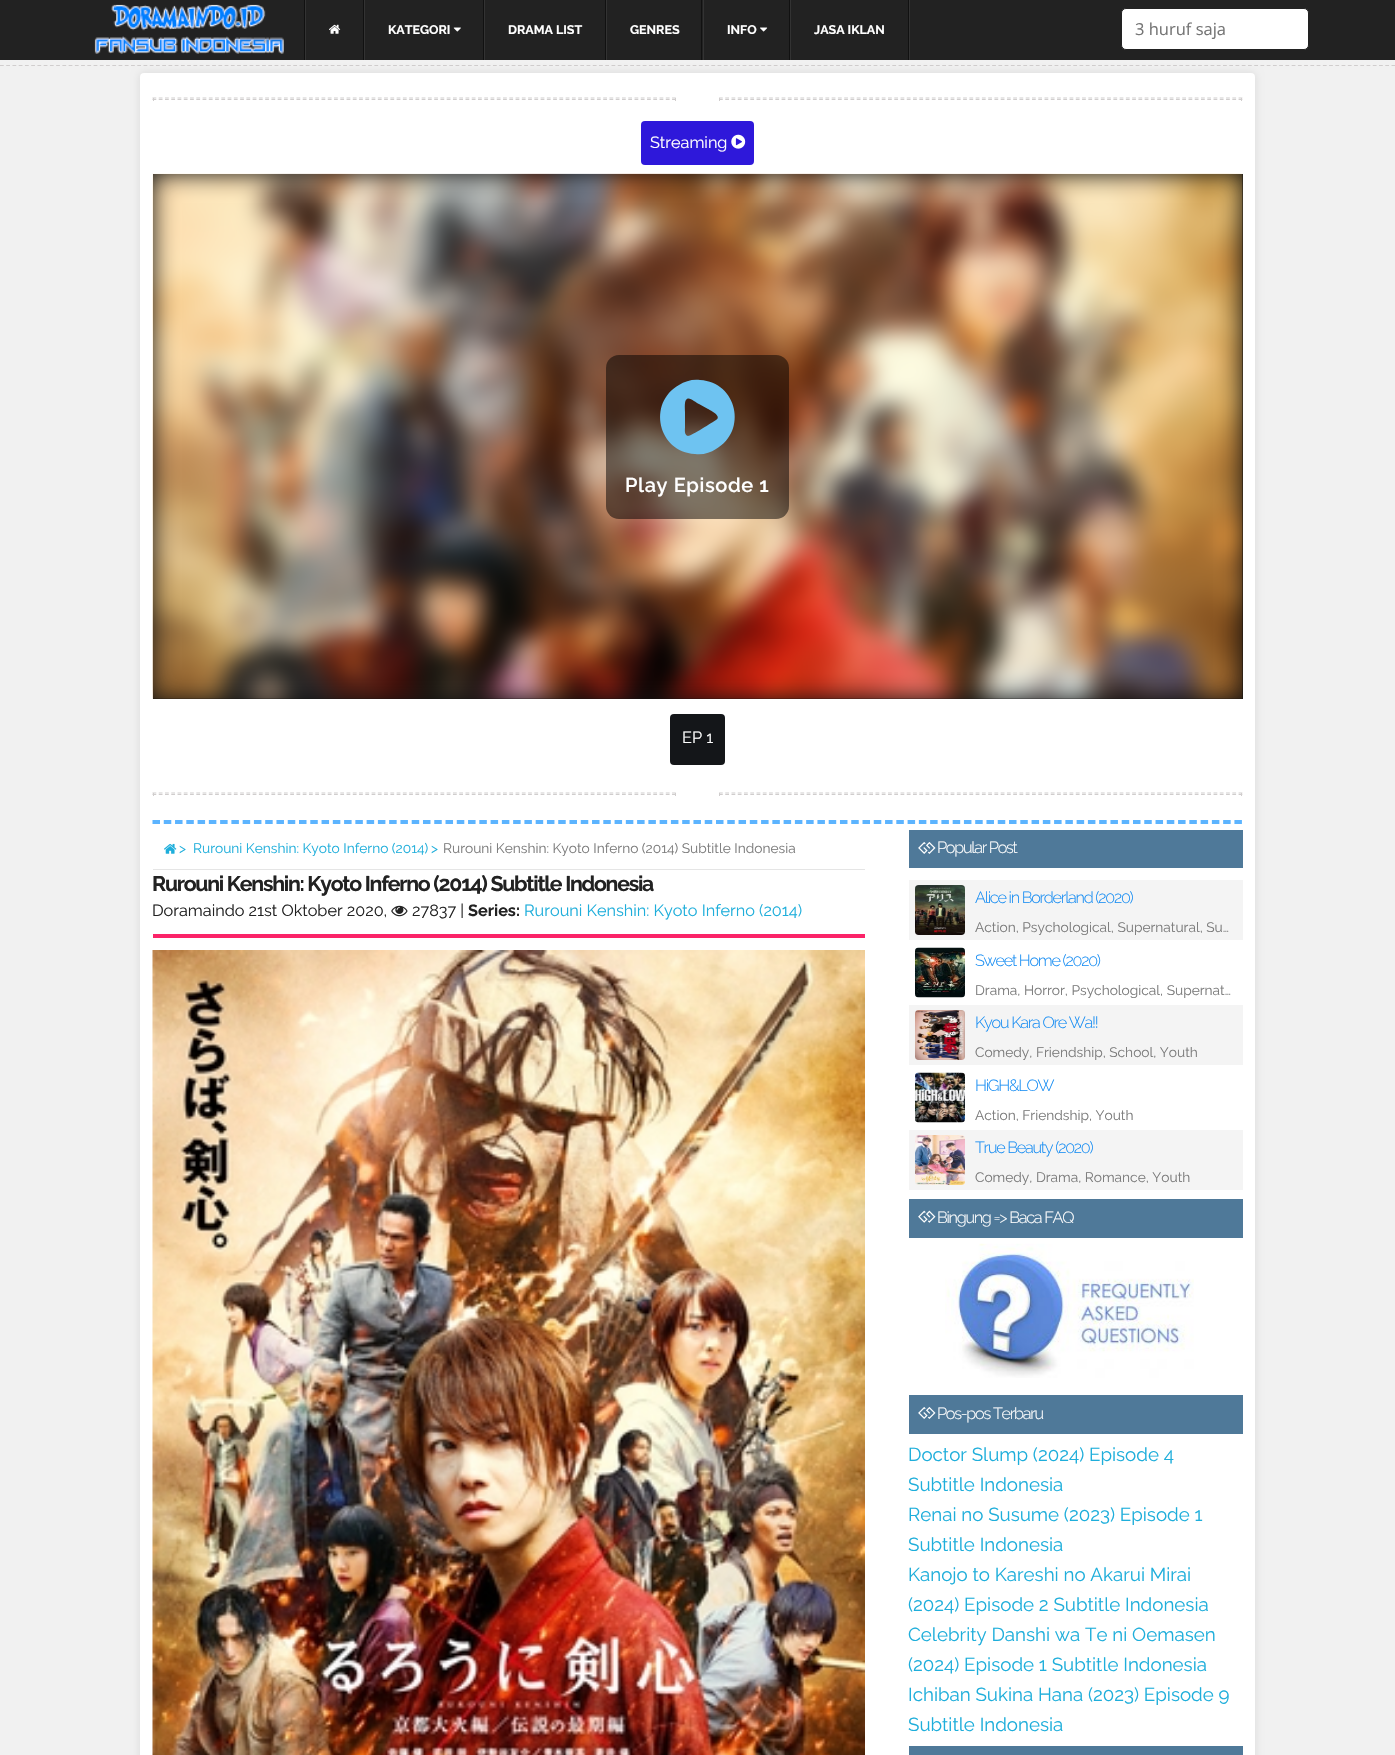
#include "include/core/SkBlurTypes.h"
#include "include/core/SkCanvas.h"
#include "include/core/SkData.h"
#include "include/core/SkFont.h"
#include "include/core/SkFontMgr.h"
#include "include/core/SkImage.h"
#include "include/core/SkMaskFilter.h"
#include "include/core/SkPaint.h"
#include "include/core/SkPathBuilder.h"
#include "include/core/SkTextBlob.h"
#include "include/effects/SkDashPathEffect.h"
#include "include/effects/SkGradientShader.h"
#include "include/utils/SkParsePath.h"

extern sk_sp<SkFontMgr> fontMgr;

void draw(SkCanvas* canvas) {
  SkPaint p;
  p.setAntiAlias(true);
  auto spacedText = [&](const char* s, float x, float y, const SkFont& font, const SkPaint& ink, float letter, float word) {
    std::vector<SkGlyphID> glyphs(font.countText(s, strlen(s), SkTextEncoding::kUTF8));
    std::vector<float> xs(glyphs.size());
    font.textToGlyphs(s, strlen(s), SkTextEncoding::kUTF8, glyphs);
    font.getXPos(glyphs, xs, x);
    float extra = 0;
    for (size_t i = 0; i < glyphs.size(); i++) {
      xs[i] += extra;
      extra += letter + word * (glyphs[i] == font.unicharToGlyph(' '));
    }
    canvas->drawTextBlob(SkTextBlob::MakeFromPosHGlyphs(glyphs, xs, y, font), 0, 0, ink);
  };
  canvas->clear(SkColorSetRGB(241, 241, 241));
  p.setStyle(SkPaint::kStroke_Style);
  p.setStrokeWidth(1.2f);
  p.setColor(SkColorSetRGB(208, 205, 205));
  p.setPathEffect(SkDashPathEffect::Make({{3.75f, 2.49f}}, 0));
  canvas->drawPath(SkPathBuilder().moveTo(0, 65.5f).lineTo(1395, 65.5f).detach(), p);
  p.setPathEffect(nullptr);
  p.setStyle(SkPaint::kFill_Style);
  p.setColor(SkColorSetARGB(26, 0, 0, 0));
  p.setMaskFilter(SkMaskFilter::MakeBlur(kNormal_SkBlurStyle, 4.5f));
  canvas->drawRoundRect(SkRect::MakeLTRB(140, 73, 1255, 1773), 4, 4, p);
  p.setMaskFilter(nullptr);
  p.setColor(SkColorSetRGB(34, 34, 34));
  canvas->drawRect(SkRect::MakeLTRB(0, 0, 1395, 60), p);
  canvas->drawImageRect(SkImages::DeferredFromEncodedData(SkData::MakeFromFileName("images/1.png")), SkRect::MakeLTRB(94, 4, 284, 54), SkSamplingOptions());
  p.setColor(SkColorSetRGB(51, 51, 51));
  canvas->drawRect(SkRect::MakeLTRB(909, 0, 910, 60), p);
  p.setColor(SkColorSetRGB(17, 17, 17));
  canvas->drawRect(SkRect::MakeLTRB(304, 0, 305, 60), p);
  canvas->drawRect(SkRect::MakeLTRB(363, 0, 364, 60), p);
  p.setColor(SkColorSetRGB(51, 51, 51));
  canvas->drawRect(SkRect::MakeLTRB(305, 0, 306, 60), p);
  canvas->drawImageRect(SkImages::DeferredFromEncodedData(SkData::MakeFromFileName("images/2.png")), SkRect::MakeLTRB(329, 24, 341, 34), SkSamplingOptions());
  p.setColor(SkColorSetRGB(17, 17, 17));
  canvas->drawRect(SkRect::MakeLTRB(483, 0, 484, 60), p);
  p.setColor(SkColorSetRGB(51, 51, 51));
  canvas->drawRect(SkRect::MakeLTRB(364, 0, 365, 60), p);
  canvas->drawImageRect(SkImages::DeferredFromEncodedData(SkData::MakeFromFileName("images/3.png")), SkRect::MakeLTRB(453, 27, 461, 32), SkSamplingOptions());
  p.setColor(SkColorSetRGB(17, 17, 17));
  canvas->drawRect(SkRect::MakeLTRB(605, 0, 606, 60), p);
  p.setColor(SkColorSetRGB(51, 51, 51));
  canvas->drawRect(SkRect::MakeLTRB(484, 0, 485, 60), p);
  p.setColor(SkColorSetRGB(17, 17, 17));
  canvas->drawRect(SkRect::MakeLTRB(701, 0, 702, 60), p);
  p.setColor(SkColorSetRGB(51, 51, 51));
  canvas->drawRect(SkRect::MakeLTRB(606, 0, 607, 60), p);
  p.setColor(SkColorSetRGB(17, 17, 17));
  canvas->drawRect(SkRect::MakeLTRB(789, 0, 790, 60), p);
  p.setColor(SkColorSetRGB(51, 51, 51));
  canvas->drawRect(SkRect::MakeLTRB(703, 0, 704, 60), p);
  canvas->drawImageRect(SkImages::DeferredFromEncodedData(SkData::MakeFromFileName("images/4.png")), SkRect::MakeLTRB(760, 27, 768, 32), SkSamplingOptions());
  p.setColor(SkColorSetRGB(17, 17, 17));
  canvas->drawRect(SkRect::MakeLTRB(908, 0, 909, 60), p);
  p.setColor(SkColorSetRGB(51, 51, 51));
  canvas->drawRect(SkRect::MakeLTRB(790, 0, 791, 60), p);
  p.setColor(SK_ColorWHITE);
  canvas->drawRoundRect(SkRect::MakeLTRB(1121.5f, 8.5f, 1308.5f, 49.5f), 4.5f, 4.5f, p);
  p.setStyle(SkPaint::kStroke_Style);
  p.setStrokeWidth(1);
  p.setColor(SkColorSetRGB(34, 34, 34));
  canvas->drawRoundRect(SkRect::MakeLTRB(1121.5f, 8.5f, 1308.5f, 49.5f), 4.5f, 4.5f, p);
  p.setStyle(SkPaint::kFill_Style);
  p.setColor(SK_ColorWHITE);
  canvas->drawRoundRect(SkRect::MakeLTRB(140, 73, 1255, 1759), 4, 4, p);
  p.setStyle(SkPaint::kStroke_Style);
  p.setStrokeWidth(1.2f);
  p.setColor(SkColorSetRGB(208, 205, 205));
  p.setPathEffect(SkDashPathEffect::Make({{3.75f, 2.51f}}, 0));
  canvas->drawPath(SkPathBuilder().moveTo(152.5f, 98).lineTo(676, 98).detach(), p);
  p.setPathEffect(nullptr);
  p.setStyle(SkPaint::kFill_Style);
  canvas->drawRect(SkRect::MakeLTRB(675, 98, 676, 101), p);
  p.setStyle(SkPaint::kStroke_Style);
  p.setPathEffect(SkDashPathEffect::Make({{3.75f, 2.51f}}, 0));
  canvas->drawPath(SkPathBuilder().moveTo(152.5f, 99.5f).lineTo(676, 99.5f).detach(), p);
  p.setPathEffect(nullptr);
  p.setStyle(SkPaint::kFill_Style);
  canvas->drawRect(SkRect::MakeLTRB(153, 98, 154, 101), p);
  p.setStyle(SkPaint::kStroke_Style);
  p.setPathEffect(SkDashPathEffect::Make({{3.75f, 2.51f}}, 0));
  canvas->drawPath(SkPathBuilder().moveTo(719, 98).lineTo(1242.5f, 98).detach(), p);
  p.setPathEffect(nullptr);
  p.setStyle(SkPaint::kFill_Style);
  canvas->drawRect(SkRect::MakeLTRB(1241, 98, 1242, 101), p);
  p.setStyle(SkPaint::kStroke_Style);
  p.setPathEffect(SkDashPathEffect::Make({{3.75f, 2.51f}}, 0));
  canvas->drawPath(SkPathBuilder().moveTo(719, 99.5f).lineTo(1242.5f, 99.5f).detach(), p);
  p.setPathEffect(nullptr);
  p.setStyle(SkPaint::kFill_Style);
  canvas->drawRect(SkRect::MakeLTRB(719, 98, 720, 101), p);
  p.setColor(SkColorSetRGB(46, 24, 218));
  canvas->drawRoundRect(SkRect::MakeLTRB(641, 121, 754, 165), 4, 4, p);
  canvas->drawImageRect(SkImages::DeferredFromEncodedData(SkData::MakeFromFileName("images/5.png")), SkRect::MakeLTRB(731, 134, 746, 149), SkSamplingOptions());
  p.setColor(SkColorSetRGB(17, 17, 17));
  canvas->drawRect(SkRect::MakeLTRB(153, 174, 1243, 699), p);
  canvas->drawImageRect(SkImages::DeferredFromEncodedData(SkData::MakeFromFileName("images/6.png")), SkRect::MakeLTRB(152, 173, 1243, 699), SkSamplingOptions());
  p.setColor(SkColorSetARGB(128, 0, 0, 0));
  canvas->drawRoundRect(SkRect::MakeLTRB(606, 355, 789, 519), 13, 13, p);
  p.setColor(SkColorSetRGB(110, 195, 241));
  canvas->drawPath(SkPathBuilder().moveTo(679, 385).cubicTo(685, 381, 693, 379, 700, 380).cubicTo(737, 382, 748, 431, 716, 449).cubicTo(710, 453, 703, 455, 695, 454).cubicTo(658, 452, 647, 403, 679, 385).close().moveTo(716, 420).cubicTo(723, 416, 708, 409, 708, 409).lineTo(699, 404).cubicTo(696, 403, 690, 397, 687, 399).cubicTo(684, 400, 685, 409, 685, 412).lineTo(685, 427).cubicTo(685, 430, 684, 435, 688, 436).cubicTo(691, 436, 713, 422, 716, 420).close().detach(), p);
  p.setColor(SkColorSetRGB(20, 22, 25));
  canvas->drawRoundRect(SkRect::MakeLTRB(670, 714, 725, 765), 4, 4, p);
  p.setStyle(SkPaint::kStroke_Style);
  p.setColor(SkColorSetRGB(208, 205, 205));
  p.setPathEffect(SkDashPathEffect::Make({{3.75f, 2.51f}}, 0));
  canvas->drawPath(SkPathBuilder().moveTo(152.5f, 793).lineTo(676, 793).detach(), p);
  p.setPathEffect(nullptr);
  p.setStyle(SkPaint::kFill_Style);
  canvas->drawRect(SkRect::MakeLTRB(675, 793, 676, 796), p);
  p.setStyle(SkPaint::kStroke_Style);
  p.setPathEffect(SkDashPathEffect::Make({{3.75f, 2.51f}}, 0));
  canvas->drawPath(SkPathBuilder().moveTo(152.5f, 794.5f).lineTo(676, 794.5f).detach(), p);
  p.setPathEffect(nullptr);
  p.setStyle(SkPaint::kFill_Style);
  canvas->drawRect(SkRect::MakeLTRB(153, 793, 154, 796), p);
  p.setStyle(SkPaint::kStroke_Style);
  p.setPathEffect(SkDashPathEffect::Make({{3.75f, 2.51f}}, 0));
  canvas->drawPath(SkPathBuilder().moveTo(719, 793).lineTo(1242.5f, 793).detach(), p);
  p.setPathEffect(nullptr);
  p.setStyle(SkPaint::kFill_Style);
  canvas->drawRect(SkRect::MakeLTRB(1241, 793, 1242, 796), p);
  p.setStyle(SkPaint::kStroke_Style);
  p.setPathEffect(SkDashPathEffect::Make({{3.75f, 2.51f}}, 0));
  canvas->drawPath(SkPathBuilder().moveTo(719, 794.5f).lineTo(1242.5f, 794.5f).detach(), p);
  p.setPathEffect(nullptr);
  p.setStyle(SkPaint::kFill_Style);
  canvas->drawRect(SkRect::MakeLTRB(719, 793, 720, 796), p);
  p.setStyle(SkPaint::kStroke_Style);
  p.setStrokeWidth(3.8f);
  p.setColor(SkColorSetRGB(92, 180, 255));
  p.setPathEffect(SkDashPathEffect::Make({{7.5f, 3.77f}}, 0));
  canvas->drawPath(SkPathBuilder().moveTo(152.5f, 822).lineTo(1242.5f, 822).detach(), p);
  p.setPathEffect(nullptr);
  p.setStyle(SkPaint::kFill_Style);
  p.setColor(SkColorSetRGB(229, 229, 229));
  canvas->drawRect(SkRect::MakeLTRB(153, 869, 865, 870), p);
  canvas->drawImageRect(SkImages::DeferredFromEncodedData(SkData::MakeFromFileName("images/7.png")), SkRect::MakeLTRB(164, 843, 177, 854), SkSamplingOptions());
  p.setColor(SkColorSetRGB(251, 35, 104));
  canvas->drawRect(SkRect::MakeLTRB(153, 934, 865, 938), p);
  canvas->drawImageRect(SkImages::DeferredFromEncodedData(SkData::MakeFromFileName("images/8.png")), SkRect::MakeLTRB(391, 905, 408, 917), SkSamplingOptions());
  canvas->drawImageRect(SkImages::DeferredFromEncodedData(SkData::MakeFromFileName("images/9.png")), SkRect::MakeLTRB(152, 950, 865, 1755), SkSamplingOptions());
  p.setColor(SkColorSetRGB(79, 121, 153));
  canvas->drawRect(SkRect::MakeLTRB(909, 830, 1243, 868), p);
  canvas->drawImageRect(SkImages::DeferredFromEncodedData(SkData::MakeFromFileName("images/10.png")), SkRect::MakeLTRB(918, 842, 936, 854), SkSamplingOptions());
  p.setColor(SkColorSetRGB(244, 244, 244));
  canvas->drawRect(SkRect::MakeLTRB(909, 880, 1243, 940), p);
  canvas->drawImageRect(SkImages::DeferredFromEncodedData(SkData::MakeFromFileName("images/11.png")), SkRect::MakeLTRB(915, 885, 965, 935), SkSamplingOptions());
  canvas->drawImageRect(SkImages::DeferredFromEncodedData(SkData::MakeFromFileName("images/12.png")), SkRect::MakeLTRB(915, 947, 965, 998), SkSamplingOptions());
  canvas->drawRect(SkRect::MakeLTRB(909, 1005, 1243, 1065), p);
  canvas->drawImageRect(SkImages::DeferredFromEncodedData(SkData::MakeFromFileName("images/13.png")), SkRect::MakeLTRB(915, 1010, 965, 1060), SkSamplingOptions());
  canvas->drawImageRect(SkImages::DeferredFromEncodedData(SkData::MakeFromFileName("images/14.png")), SkRect::MakeLTRB(915, 1072, 965, 1123), SkSamplingOptions());
  canvas->drawRect(SkRect::MakeLTRB(909, 1130, 1243, 1190), p);
  canvas->drawImageRect(SkImages::DeferredFromEncodedData(SkData::MakeFromFileName("images/15.png")), SkRect::MakeLTRB(915, 1135, 965, 1185), SkSamplingOptions());
  p.setColor(SkColorSetRGB(79, 121, 153));
  canvas->drawRect(SkRect::MakeLTRB(909, 1199, 1243, 1238), p);
  canvas->drawImageRect(SkImages::DeferredFromEncodedData(SkData::MakeFromFileName("images/16.png")), SkRect::MakeLTRB(918, 1210, 936, 1223), SkSamplingOptions());
  canvas->drawImageRect(SkImages::DeferredFromEncodedData(SkData::MakeFromFileName("images/17.png")), SkRect::MakeLTRB(945, 1243, 1194, 1378), SkSamplingOptions());
  canvas->drawRect(SkRect::MakeLTRB(909, 1395, 1243, 1434), p);
  canvas->drawImageRect(SkImages::DeferredFromEncodedData(SkData::MakeFromFileName("images/10.png")), SkRect::MakeLTRB(918, 1407, 936, 1419), SkSamplingOptions());
  canvas->drawRect(SkRect::MakeLTRB(909, 1746, 1243, 1755), p);
  SkFont font1(fontMgr->matchFamilyStyle("Raleway", SkFontStyle::Bold()), 12.5f);
  font1.setSubpixel(true);
  p.setColor(SK_ColorWHITE);
  canvas->drawString("KATEGORI", 388, 34, font1, p);
  canvas->drawString("DRAMA LIST", 508, 34, font1, p);
  canvas->drawString("GENRES", 630, 34, font1, p);
  canvas->drawString("INFO", 727, 34, font1, p);
  canvas->drawString("JASA IKLAN", 814, 34, font1, p);
  SkFont font2(fontMgr->matchFamilyStyle("Open Sans", SkFontStyle::Normal()), 16.5f);
  font2.setSubpixel(true);
  p.setColor(SkColorSetRGB(117, 117, 117));
  canvas->drawString("3 huruf saja", 1135, 35, font2, p);
  SkFont font3(fontMgr->matchFamilyStyle("Raleway", SkFontStyle::Normal()), 16.25f);
  font3.setSubpixel(true);
  p.setColor(SK_ColorWHITE);
  canvas->drawString("Streaming", 650, 148, font3, p);
  SkFont font4(fontMgr->matchFamilyStyle("Raleway", SkFontStyle(600, SkFontStyle::kNormal_Width, SkFontStyle::kUpright_Slant)), 20);
  font4.setSubpixel(true);
  spacedText("Play Episode 1", 625, 492, font4, p, 0.6f, 0);
  canvas->drawString("EP 1", 682, 743, font3, p);
  SkFont font5(fontMgr->matchFamilyStyle("Raleway", SkFontStyle::Normal()), 13.75f);
  font5.setSubpixel(true);
  p.setColor(SkColorSetRGB(30, 174, 219));
  canvas->drawString(">", 179, 853, font5, p);
  canvas->drawString("Rurouni Kenshin: Kyoto Inferno (2014)", 193, 853, font5, p);
  canvas->drawString(">", 431, 853, font5, p);
  p.setColor(SkColorSetRGB(123, 123, 123));
  canvas->drawString("Rurouni Kenshin: Kyoto Inferno (2014) Subtitle Indonesia", 443, 853, font5, p);
  SkFont font6(fontMgr->matchFamilyStyle("Raleway", SkFontStyle::Bold()), 21.25f);
  font6.setSubpixel(true);
  p.setColor(SkColorSetRGB(34, 34, 34));
  spacedText("Rurouni Kenshin: Kyoto Inferno (2014) Subtitle Indonesia", 152, 891, font6, p, -1.25f, 0);
  canvas->drawString("Doramaindo 21st Oktober 2020,", 152, 916, font3, p);
  canvas->drawString("27837 |", 412, 916, font3, p);
  SkFont font7(fontMgr->matchFamilyStyle("Raleway", SkFontStyle::Bold()), 16.25f);
  font7.setSubpixel(true);
  canvas->drawString("Series:", 468, 916, font7, p);
  p.setColor(SkColorSetRGB(30, 174, 219));
  canvas->drawString("Rurouni Kenshin: Kyoto Inferno (2014)", 524, 916, font3, p);
  SkFont font8(fontMgr->matchFamilyStyle("Raleway", SkFontStyle(300, SkFontStyle::kNormal_Width, SkFontStyle::kUpright_Slant)), 16.25f);
  font8.setSubpixel(true);
  p.setColor(SK_ColorWHITE);
  spacedText("Popular Post", 937, 853, font8, p, -1.25f, 0);
  p.setColor(SkColorSetRGB(25, 142, 243));
  spacedText("Alice in Borderland (2020)", 975, 903, font8, p, -1.25f, 0);
  p.setColor(SkColorSetRGB(123, 123, 123));
  canvas->drawString("Action, Psychological, Supernatural, Su…", 975, 932, font5, p);
  p.setColor(SkColorSetRGB(25, 142, 243));
  spacedText("Sweet Home (2020)", 975, 966, font8, p, -1.25f, 0);
  p.setColor(SkColorSetRGB(123, 123, 123));
  canvas->drawString("Drama, Horror, Psychological, Supernat…", 975, 995, font5, p);
  p.setColor(SkColorSetRGB(25, 142, 243));
  spacedText("Kyou Kara Ore Wa!!", 975, 1028, font8, p, -1.25f, 0);
  p.setColor(SkColorSetRGB(123, 123, 123));
  canvas->drawString("Comedy, Friendship, School, Youth", 975, 1057, font5, p);
  p.setColor(SkColorSetRGB(25, 142, 243));
  spacedText("HiGH&LOW", 975, 1091, font8, p, -1.25f, 0);
  p.setColor(SkColorSetRGB(123, 123, 123));
  canvas->drawString("Action, Friendship, Youth", 975, 1120, font5, p);
  p.setColor(SkColorSetRGB(25, 142, 243));
  spacedText("True Beauty (2020)", 975, 1153, font8, p, -1.25f, 0);
  p.setColor(SkColorSetRGB(123, 123, 123));
  canvas->drawString("Comedy, Drama, Romance, Youth", 975, 1182, font5, p);
  p.setColor(SK_ColorWHITE);
  spacedText("Bingung => Baca FAQ", 937, 1223, font8, p, -1.25f, 0);
  spacedText("Pos-pos Terbaru", 937, 1419, font8, p, -1.25f, 0);
  SkFont font9(fontMgr->matchFamilyStyle("Raleway", SkFontStyle::Normal()), 18.75f);
  font9.setSubpixel(true);
  p.setColor(SkColorSetRGB(30, 174, 219));
  canvas->drawString("Doctor Slump (2024) Episode 4", 908, 1461, font9, p);
  canvas->drawString("Subtitle Indonesia", 908, 1491, font9, p);
  canvas->drawString("Renai no Susume (2023) Episode 1", 908, 1521, font9, p);
  canvas->drawString("Subtitle Indonesia", 908, 1551, font9, p);
  canvas->drawString("Kanojo to Kareshi no Akarui Mirai", 908, 1581, font9, p);
  canvas->drawString("(2024) Episode 2 Subtitle Indonesia", 908, 1611, font9, p);
  canvas->drawString("Celebrity Danshi wa Te ni Oemasen", 908, 1641, font9, p);
  canvas->drawString("(2024) Episode 1 Subtitle Indonesia", 908, 1671, font9, p);
  canvas->drawString("Ichiban Sukina Hana (2023) Episode 9", 908, 1701, font9, p);
  canvas->drawString("Subtitle Indonesia", 908, 1731, font9, p);
}
